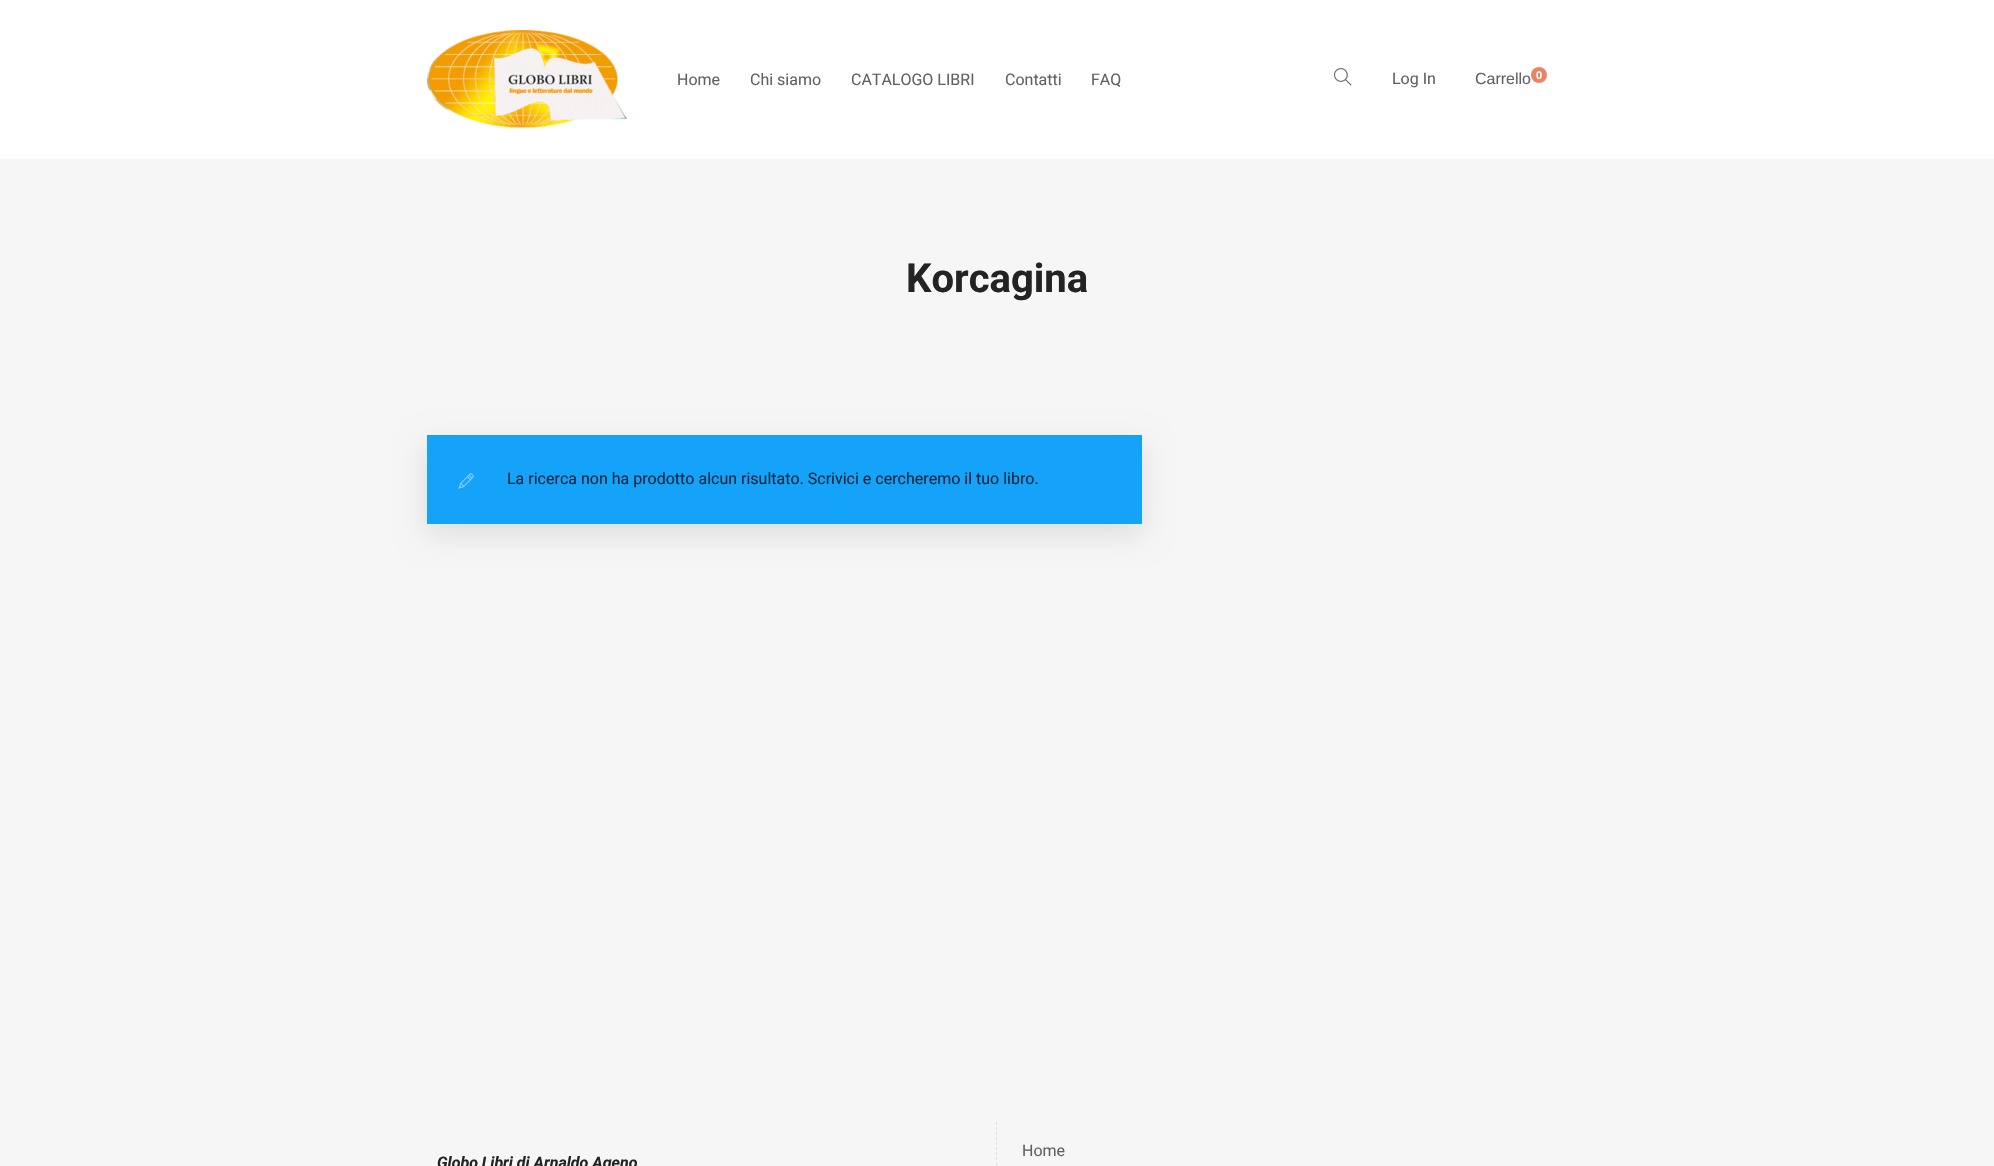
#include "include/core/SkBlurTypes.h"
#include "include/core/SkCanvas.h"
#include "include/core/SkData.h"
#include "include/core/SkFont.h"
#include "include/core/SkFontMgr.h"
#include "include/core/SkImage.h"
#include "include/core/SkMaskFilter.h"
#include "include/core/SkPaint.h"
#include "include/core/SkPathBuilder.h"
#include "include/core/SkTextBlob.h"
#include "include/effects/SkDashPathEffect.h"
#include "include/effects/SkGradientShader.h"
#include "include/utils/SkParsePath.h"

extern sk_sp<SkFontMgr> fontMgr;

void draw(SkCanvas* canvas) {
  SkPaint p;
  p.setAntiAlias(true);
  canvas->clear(SkColorSetRGB(246, 246, 246));
  p.setColor(SK_ColorWHITE);
  canvas->drawRect(SkRect::MakeLTRB(0, 0, 1994, 159), p);
  canvas->drawImageRect(SkImages::DeferredFromEncodedData(SkData::MakeFromFileName("images/1.png")), SkRect::MakeLTRB(427, 30, 627, 129), SkSamplingOptions());
  canvas->drawImageRect(SkImages::DeferredFromEncodedData(SkData::MakeFromFileName("images/2.png")), SkRect::MakeLTRB(1334, 68, 1352, 86), SkSamplingOptions());
  p.setColor(SkColorSetRGB(235, 131, 103));
  canvas->drawCircle(1539, 75, 8, p);
  p.setColor(SkColorSetARGB(26, 0, 0, 0));
  p.setMaskFilter(SkMaskFilter::MakeBlur(kNormal_SkBlurStyle, 15));
  canvas->drawRect(SkRect::MakeLTRB(427, 445, 1142, 534), p);
  p.setMaskFilter(nullptr);
  p.setColor(SkColorSetRGB(21, 163, 249));
  canvas->drawRect(SkRect::MakeLTRB(427, 435, 1142, 524), p);
  canvas->drawImageRect(SkImages::DeferredFromEncodedData(SkData::MakeFromFileName("images/3.png")), SkRect::MakeLTRB(458, 473, 474, 489), SkSamplingOptions());
  p.setStyle(SkPaint::kStroke_Style);
  p.setStrokeWidth(1);
  p.setColor(SkColorSetRGB(224, 224, 224));
  p.setPathEffect(SkDashPathEffect::Make({{3, 1.99f}}, 0));
  canvas->drawPath(SkPathBuilder().moveTo(996.5f, 1122).lineTo(996.5f, 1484).detach(), p);
  p.setPathEffect(nullptr);
  SkFont font1(fontMgr->matchFamilyStyle("Roboto", SkFontStyle::Normal()), 16);
  font1.setSubpixel(true);
  p.setStyle(SkPaint::kFill_Style);
  p.setColor(SkColorSetRGB(97, 97, 97));
  canvas->drawString("Home", 677, 85, font1, p);
  canvas->drawString("Chi siamo", 750, 85, font1, p);
  canvas->drawString("CATALOGO LIBRI", 851, 85, font1, p);
  canvas->drawString("Contatti", 1005, 85, font1, p);
  canvas->drawString("FAQ", 1091, 85, font1, p);
  canvas->drawString("Log In", 1392, 84, font1, p);
  SkFont font2(fontMgr->matchFamilyStyle("Liberation Sans", SkFontStyle::Normal()), 16);
  font2.setSubpixel(true);
  canvas->drawString("Carrello", 1475, 84, font2, p);
  SkFont font3(fontMgr->matchFamilyStyle("Liberation Sans", SkFontStyle::Bold()), 11);
  font3.setSubpixel(true);
  p.setColor(SK_ColorWHITE);
  canvas->drawString("0", 1536, 79, font3, p);
  SkFont font4(fontMgr->matchFamilyStyle("Roboto", SkFontStyle::Bold()), 40);
  font4.setSubpixel(true);
  p.setColor(SkColorSetRGB(35, 35, 35));
  canvas->drawString("Korcagina", 906, 292, font4, p);
  p.setColor(SkColorSetRGB(1, 38, 61));
  canvas->drawString("La ricerca non ha prodotto alcun risultato. Scrivici e cercheremo il tuo libro.", 507, 484, font1, p);
  p.setColor(SkColorSetRGB(97, 97, 97));
  canvas->drawString("Home", 1022, 1156, font1, p);
  SkFont font5(fontMgr->matchFamilyStyle("Roboto", SkFontStyle::BoldItalic()), 16);
  font5.setSubpixel(true);
  p.setColor(SkColorSetRGB(35, 35, 35));
  canvas->drawString("Globo Libri di Arnaldo Ageno", 437, 1168, font5, p);
}
